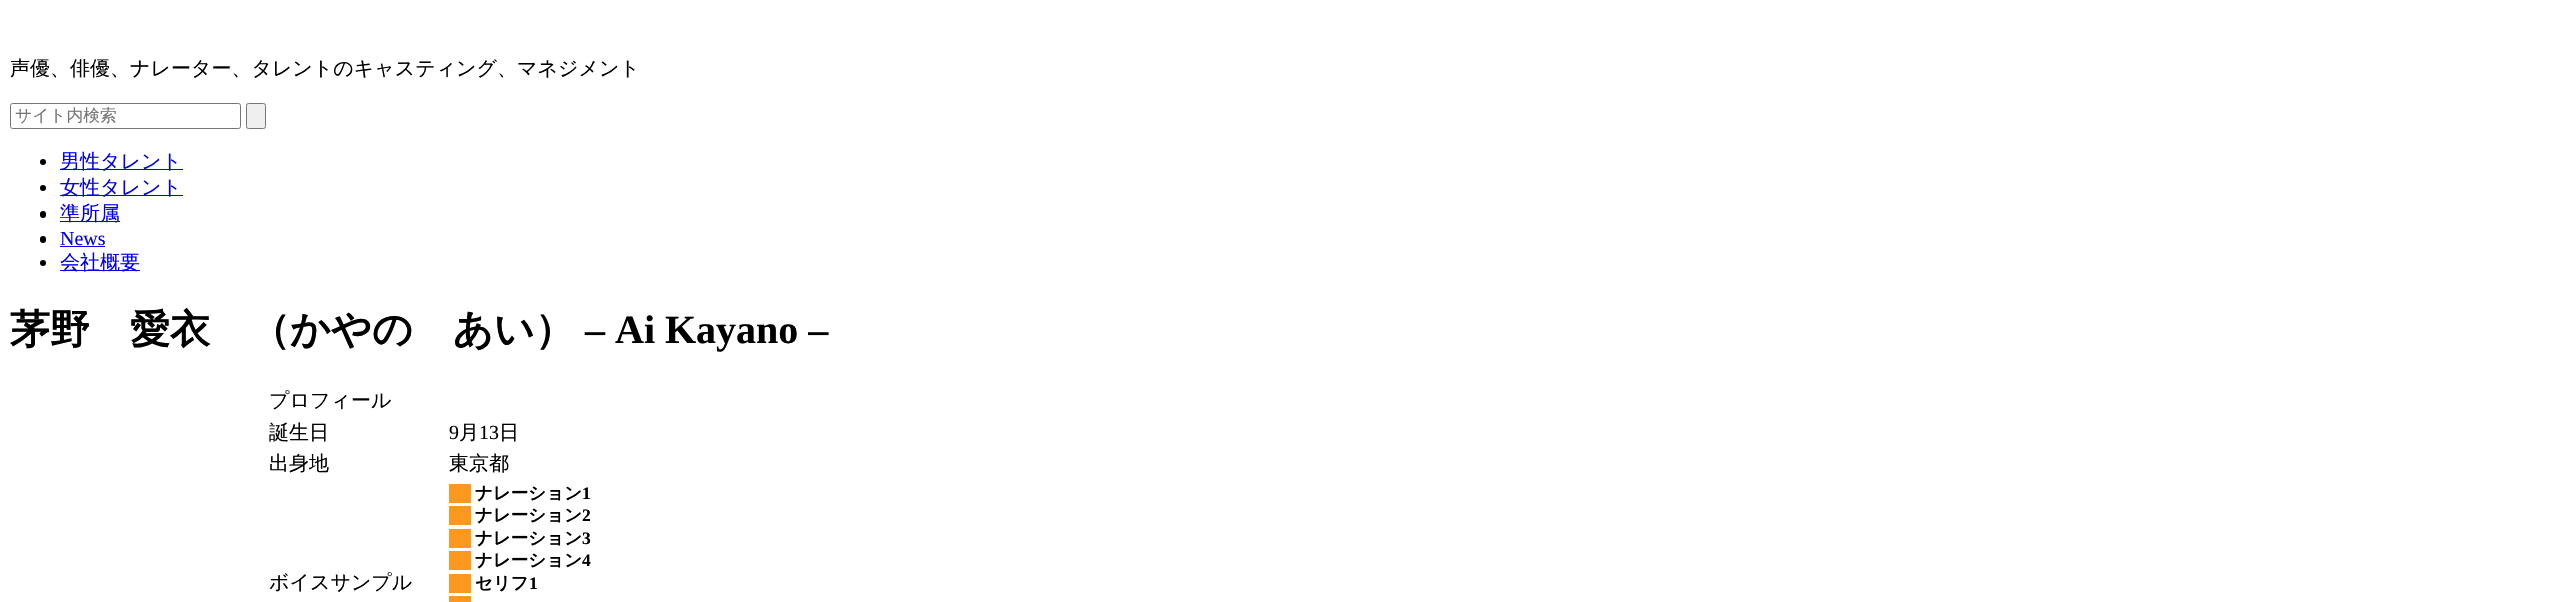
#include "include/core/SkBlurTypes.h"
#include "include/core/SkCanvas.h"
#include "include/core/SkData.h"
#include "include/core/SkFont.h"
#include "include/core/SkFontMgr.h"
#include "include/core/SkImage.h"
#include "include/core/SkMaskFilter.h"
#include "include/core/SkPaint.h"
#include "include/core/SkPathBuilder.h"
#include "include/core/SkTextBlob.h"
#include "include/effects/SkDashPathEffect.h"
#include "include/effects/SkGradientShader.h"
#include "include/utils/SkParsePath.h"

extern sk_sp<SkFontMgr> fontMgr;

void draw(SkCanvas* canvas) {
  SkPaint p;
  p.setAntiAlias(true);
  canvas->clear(SK_ColorWHITE);
  p.setStyle(SkPaint::kStroke_Style);
  p.setStrokeWidth(1);
  p.setColor(SkColorSetRGB(118, 118, 118));
  canvas->drawRoundRect(SkRect::MakeLTRB(10.5f, 103.5f, 240.5f, 128.5f), 2, 2, p);
  p.setStyle(SkPaint::kFill_Style);
  p.setColor(SkColorSetRGB(239, 239, 239));
  canvas->drawRoundRect(SkRect::MakeLTRB(246.5f, 103.5f, 265.5f, 128.5f), 2, 2, p);
  p.setStyle(SkPaint::kStroke_Style);
  p.setColor(SkColorSetRGB(118, 118, 118));
  canvas->drawRoundRect(SkRect::MakeLTRB(246.5f, 103.5f, 265.5f, 128.5f), 2, 2, p);
  p.setStyle(SkPaint::kFill_Style);
  p.setColor(SK_ColorBLACK);
  canvas->drawCircle(43, 162, 3, p);
  p.setColor(SkColorSetRGB(0, 0, 238));
  canvas->drawRect(SkRect::MakeLTRB(60, 169, 183, 170), p);
  p.setColor(SK_ColorBLACK);
  canvas->drawCircle(43, 188, 3, p);
  p.setColor(SkColorSetRGB(0, 0, 238));
  canvas->drawRect(SkRect::MakeLTRB(60, 195, 183, 196), p);
  p.setColor(SK_ColorBLACK);
  canvas->drawRoundRect(SkRect::MakeLTRB(40, 211, 46, 218), 3, 3, p);
  p.setColor(SkColorSetRGB(0, 0, 238));
  canvas->drawRect(SkRect::MakeLTRB(60, 221, 120, 222), p);
  p.setColor(SK_ColorBLACK);
  canvas->drawRoundRect(SkRect::MakeLTRB(40, 236, 46, 243), 3, 3, p);
  p.setColor(SkColorSetRGB(0, 0, 238));
  canvas->drawRect(SkRect::MakeLTRB(60, 246, 105, 247), p);
  p.setColor(SK_ColorBLACK);
  canvas->drawCircle(43, 263, 3, p);
  p.setColor(SkColorSetRGB(0, 0, 238));
  canvas->drawRect(SkRect::MakeLTRB(60, 270, 140, 271), p);
  p.setColor(SkColorSetRGB(252, 152, 30));
  canvas->drawRect(SkRect::MakeLTRB(449, 484, 471, 503), p);
  canvas->drawRect(SkRect::MakeLTRB(449, 506, 471, 525), p);
  canvas->drawRect(SkRect::MakeLTRB(449, 529, 471, 548), p);
  canvas->drawRect(SkRect::MakeLTRB(449, 551, 471, 570), p);
  canvas->drawRect(SkRect::MakeLTRB(449, 574, 471, 593), p);
  canvas->drawRect(SkRect::MakeLTRB(449, 596, 471, 602), p);
  SkFont font1(fontMgr->matchFamilyStyle("WenQuanYi Zen Hei", SkFontStyle(500, SkFontStyle::kNormal_Width, SkFontStyle::kUpright_Slant)), 20);
  font1.setSubpixel(true);
  p.setColor(SK_ColorBLACK);
  canvas->drawString("声優、俳優、ナレーター、タレントのキャスティング、マネジメント", 10, 75, font1, p);
  SkFont font2(fontMgr->matchFamilyStyle("WenQuanYi Zen Hei", SkFontStyle(500, SkFontStyle::kNormal_Width, SkFontStyle::kUpright_Slant)), 16.75f);
  font2.setSubpixel(true);
  p.setColor(SkColorSetRGB(117, 117, 117));
  canvas->drawString("サイト内検索", 15, 121, font2, p);
  p.setColor(SkColorSetRGB(0, 0, 238));
  canvas->drawString("男性タレント", 60, 168, font1, p);
  canvas->drawString("女性タレント", 60, 194, font1, p);
  canvas->drawString("準所属", 60, 220, font1, p);
  SkFont font3(fontMgr->matchFamilyStyle("Liberation Serif", SkFontStyle::Normal()), 20);
  font3.setSubpixel(true);
  canvas->drawString("News", 60, 245, font3, p);
  canvas->drawString("会社概要", 60, 269, font1, p);
  SkFont font4(fontMgr->matchFamilyStyle("WenQuanYi Zen Hei", SkFontStyle::Bold()), 40);
  font4.setSubpixel(true);
  p.setColor(SK_ColorBLACK);
  canvas->drawString("茅野　愛衣　（かやの　あい）", 10, 343, font4, p);
  SkFont font5(fontMgr->matchFamilyStyle("Liberation Serif", SkFontStyle::Bold()), 40);
  font5.setSubpixel(true);
  canvas->drawString("– Ai Kayano –", 585, 343, font5, p);
  canvas->drawString("プロフィール", 269, 407, font1, p);
  canvas->drawString("誕生日", 269, 439, font1, p);
  canvas->drawString("9", 449, 439, font3, p);
  canvas->drawString("月", 459, 439, font1, p);
  canvas->drawString("13", 479, 439, font3, p);
  canvas->drawString("日", 499, 439, font1, p);
  canvas->drawString("出身地", 269, 470, font1, p);
  canvas->drawString("東京都", 449, 470, font1, p);
  canvas->drawString("ボイスサンプル", 269, 589, font1, p);
  SkFont font6(fontMgr->matchFamilyStyle("WenQuanYi Zen Hei", SkFontStyle::Bold()), 17.5f);
  font6.setSubpixel(true);
  canvas->drawString("ナレーション", 475, 499, font6, p);
  SkFont font7(fontMgr->matchFamilyStyle("Liberation Serif", SkFontStyle::Bold()), 17.5f);
  font7.setSubpixel(true);
  canvas->drawString("1", 582, 499, font7, p);
  canvas->drawString("ナレーション", 475, 521, font6, p);
  canvas->drawString("2", 582, 521, font7, p);
  canvas->drawString("ナレーション", 475, 544, font6, p);
  canvas->drawString("3", 582, 544, font7, p);
  canvas->drawString("ナレーション", 475, 566, font6, p);
  canvas->drawString("4", 582, 566, font7, p);
  canvas->drawString("セリフ", 475, 589, font6, p);
  canvas->drawString("1", 529, 589, font7, p);
}
